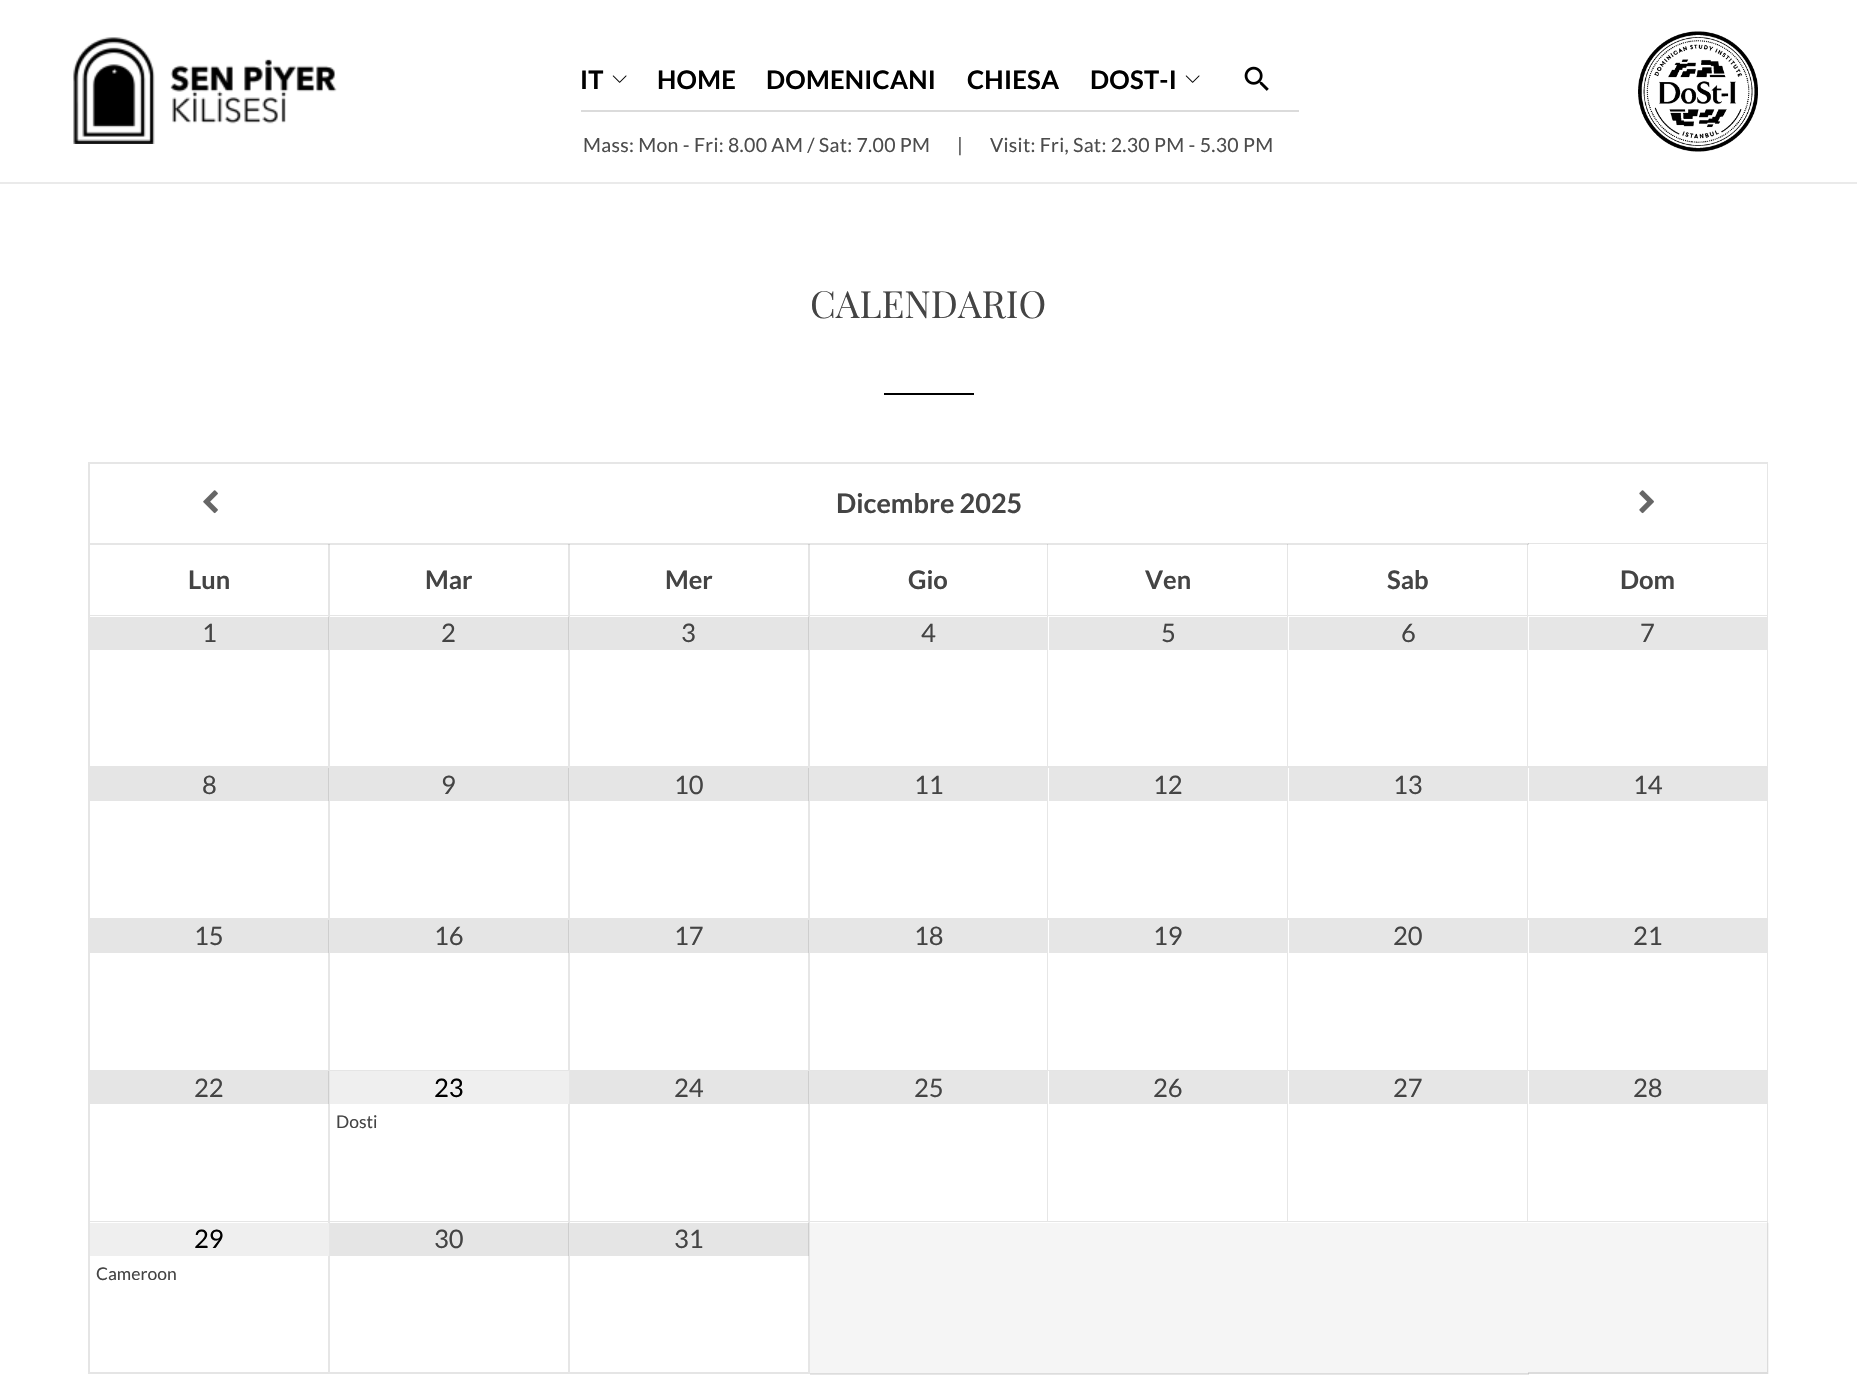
#include "include/core/SkBlurTypes.h"
#include "include/core/SkCanvas.h"
#include "include/core/SkData.h"
#include "include/core/SkFont.h"
#include "include/core/SkFontMgr.h"
#include "include/core/SkImage.h"
#include "include/core/SkMaskFilter.h"
#include "include/core/SkPaint.h"
#include "include/core/SkPathBuilder.h"
#include "include/core/SkTextBlob.h"
#include "include/effects/SkDashPathEffect.h"
#include "include/effects/SkGradientShader.h"
#include "include/utils/SkParsePath.h"

extern sk_sp<SkFontMgr> fontMgr;

void draw(SkCanvas* canvas) {
  SkPaint p;
  p.setAntiAlias(true);
  auto spacedText = [&](const char* s, float x, float y, const SkFont& font, const SkPaint& ink, float letter, float word) {
    std::vector<SkGlyphID> glyphs(font.countText(s, strlen(s), SkTextEncoding::kUTF8));
    std::vector<float> xs(glyphs.size());
    font.textToGlyphs(s, strlen(s), SkTextEncoding::kUTF8, glyphs);
    font.getXPos(glyphs, xs, x);
    float extra = 0;
    for (size_t i = 0; i < glyphs.size(); i++) {
      xs[i] += extra;
      extra += letter + word * (glyphs[i] == font.unicharToGlyph(' '));
    }
    canvas->drawTextBlob(SkTextBlob::MakeFromPosHGlyphs(glyphs, xs, y, font), 0, 0, ink);
  };
  canvas->clear(SK_ColorWHITE);
  p.setColor(SkColorSetRGB(230, 230, 230));
  canvas->drawRect(SkRect::MakeLTRB(810, 1374, 1529, 1375), p);
  p.setColor(SkColorSetRGB(234, 234, 234));
  canvas->drawRect(SkRect::MakeLTRB(0, 182, 1857, 184), p);
  canvas->drawImageRect(SkImages::DeferredFromEncodedData(SkData::MakeFromFileName("images/1.png")), SkRect::MakeLTRB(73, 37, 337, 144), SkSamplingOptions());
  p.setColor(SkColorSetRGB(219, 219, 219));
  canvas->drawRect(SkRect::MakeLTRB(581, 110, 1299, 112), p);
  canvas->drawImageRect(SkImages::DeferredFromEncodedData(SkData::MakeFromFileName("images/2.png")), SkRect::MakeLTRB(612, 75, 627, 83), SkSamplingOptions());
  canvas->drawImageRect(SkImages::DeferredFromEncodedData(SkData::MakeFromFileName("images/2.png")), SkRect::MakeLTRB(1185, 75, 1200, 83), SkSamplingOptions());
  canvas->drawImageRect(SkImages::DeferredFromEncodedData(SkData::MakeFromFileName("images/3.png")), SkRect::MakeLTRB(1244, 66, 1269, 91), SkSamplingOptions());
  canvas->drawImageRect(SkImages::DeferredFromEncodedData(SkData::MakeFromFileName("images/4.png")), SkRect::MakeLTRB(1638, 31, 1758, 152), SkSamplingOptions());
  p.setColor(SK_ColorBLACK);
  canvas->drawRect(SkRect::MakeLTRB(884, 393, 974, 395), p);
  p.setColor(SkColorSetRGB(230, 230, 230));
  canvas->drawPath(SkPathBuilder().moveTo(88, 462).lineTo(1768, 462).lineTo(1768, 464).lineTo(90, 464).close().detach(), p);
  p.setColor(SkColorSetARGB(26, 0, 0, 0));
  canvas->drawPath(SkPathBuilder().moveTo(88, 1374).lineTo(88, 462).lineTo(90, 464).lineTo(90, 1374).close().detach(), p);
  p.setColor(SkColorSetRGB(230, 230, 230));
  canvas->drawRect(SkRect::MakeLTRB(90, 543, 1529, 545), p);
  canvas->drawImageRect(SkImages::DeferredFromEncodedData(SkData::MakeFromFileName("images/5.png")), SkRect::MakeLTRB(203, 490, 218, 514), SkSamplingOptions());
  canvas->drawPath(SkPathBuilder().moveTo(1768, 464).lineTo(1768, 544).lineTo(1767, 543).lineTo(1767, 464).close().detach(), p);
  p.setColor(SkColorSetARGB(26, 0, 0, 0));
  canvas->drawPath(SkPathBuilder().moveTo(1768, 544).lineTo(1528, 544).lineTo(1528, 543).lineTo(1767, 543).close().detach(), p);
  canvas->drawImageRect(SkImages::DeferredFromEncodedData(SkData::MakeFromFileName("images/6.png")), SkRect::MakeLTRB(1639, 490, 1654, 514), SkSamplingOptions());
  canvas->drawPath(SkPathBuilder().moveTo(330, 544).lineTo(330, 616).lineTo(328, 615).lineTo(328, 544).close().detach(), p);
  canvas->drawPath(SkPathBuilder().moveTo(330, 616).lineTo(90, 616).lineTo(90, 615).lineTo(328, 615).close().detach(), p);
  canvas->drawPath(SkPathBuilder().moveTo(570, 544).lineTo(570, 616).lineTo(568, 615).lineTo(568, 544).close().detach(), p);
  canvas->drawPath(SkPathBuilder().moveTo(570, 616).lineTo(330, 616).lineTo(330, 615).lineTo(568, 615).close().detach(), p);
  canvas->drawPath(SkPathBuilder().moveTo(810, 544).lineTo(810, 616).lineTo(808, 615).lineTo(808, 544).close().detach(), p);
  canvas->drawPath(SkPathBuilder().moveTo(810, 616).lineTo(570, 616).lineTo(570, 615).lineTo(808, 615).close().detach(), p);
  canvas->drawPath(SkPathBuilder().moveTo(1048, 544).lineTo(1048, 616).lineTo(1047, 615).lineTo(1047, 544).close().detach(), p);
  canvas->drawPath(SkPathBuilder().moveTo(1048, 616).lineTo(810, 616).lineTo(810, 615).lineTo(1047, 615).close().detach(), p);
  canvas->drawPath(SkPathBuilder().moveTo(1288, 544).lineTo(1288, 616).lineTo(1287, 615).lineTo(1287, 544).close().detach(), p);
  canvas->drawPath(SkPathBuilder().moveTo(1288, 616).lineTo(1048, 616).lineTo(1048, 615).lineTo(1287, 615).close().detach(), p);
  canvas->drawPath(SkPathBuilder().moveTo(1528, 544).lineTo(1528, 616).lineTo(1527, 615).lineTo(1527, 544).close().detach(), p);
  canvas->drawPath(SkPathBuilder().moveTo(1528, 616).lineTo(1288, 616).lineTo(1288, 615).lineTo(1527, 615).close().detach(), p);
  p.setColor(SkColorSetRGB(230, 230, 230));
  canvas->drawPath(SkPathBuilder().moveTo(1768, 544).lineTo(1768, 616).lineTo(1767, 615).lineTo(1767, 544).close().detach(), p);
  p.setColor(SkColorSetARGB(26, 0, 0, 0));
  canvas->drawPath(SkPathBuilder().moveTo(1768, 616).lineTo(1528, 616).lineTo(1528, 615).lineTo(1767, 615).close().detach(), p);
  p.setColor(SkColorSetRGB(230, 230, 230));
  canvas->drawPath(SkPathBuilder().moveTo(330, 616).lineTo(330, 768).lineTo(328, 766).lineTo(328, 616).close().detach(), p);
  p.setColor(SkColorSetARGB(26, 0, 0, 0));
  canvas->drawPath(SkPathBuilder().moveTo(330, 768).lineTo(90, 768).lineTo(90, 766).lineTo(328, 766).close().detach(), p);
  canvas->drawRect(SkRect::MakeLTRB(90, 617, 329, 650), p);
  p.setColor(SkColorSetRGB(230, 230, 230));
  canvas->drawPath(SkPathBuilder().moveTo(570, 616).lineTo(570, 768).lineTo(568, 766).lineTo(568, 616).close().detach(), p);
  p.setColor(SkColorSetARGB(26, 0, 0, 0));
  canvas->drawPath(SkPathBuilder().moveTo(570, 768).lineTo(330, 768).lineTo(330, 766).lineTo(568, 766).close().detach(), p);
  canvas->drawRect(SkRect::MakeLTRB(330, 617, 569, 650), p);
  p.setColor(SkColorSetRGB(230, 230, 230));
  canvas->drawPath(SkPathBuilder().moveTo(810, 616).lineTo(810, 768).lineTo(808, 766).lineTo(808, 616).close().detach(), p);
  p.setColor(SkColorSetARGB(26, 0, 0, 0));
  canvas->drawPath(SkPathBuilder().moveTo(810, 768).lineTo(570, 768).lineTo(570, 766).lineTo(808, 766).close().detach(), p);
  canvas->drawRect(SkRect::MakeLTRB(570, 617, 809, 650), p);
  p.setColor(SkColorSetRGB(230, 230, 230));
  canvas->drawPath(SkPathBuilder().moveTo(1048, 616).lineTo(1048, 768).lineTo(1047, 766).lineTo(1047, 616).close().detach(), p);
  p.setColor(SkColorSetARGB(26, 0, 0, 0));
  canvas->drawPath(SkPathBuilder().moveTo(1048, 768).lineTo(810, 768).lineTo(810, 766).lineTo(1047, 766).close().detach(), p);
  p.setColor(SkColorSetRGB(230, 230, 230));
  canvas->drawRect(SkRect::MakeLTRB(810, 617, 1047, 650), p);
  canvas->drawPath(SkPathBuilder().moveTo(1288, 616).lineTo(1288, 768).lineTo(1287, 766).lineTo(1287, 616).close().detach(), p);
  p.setColor(SkColorSetARGB(26, 0, 0, 0));
  canvas->drawPath(SkPathBuilder().moveTo(1288, 768).lineTo(1048, 768).lineTo(1048, 766).lineTo(1287, 766).close().detach(), p);
  p.setColor(SkColorSetRGB(230, 230, 230));
  canvas->drawRect(SkRect::MakeLTRB(1049, 617, 1287, 650), p);
  canvas->drawPath(SkPathBuilder().moveTo(1528, 616).lineTo(1528, 768).lineTo(1527, 766).lineTo(1527, 616).close().detach(), p);
  p.setColor(SkColorSetARGB(26, 0, 0, 0));
  canvas->drawPath(SkPathBuilder().moveTo(1528, 768).lineTo(1288, 768).lineTo(1288, 766).lineTo(1527, 766).close().detach(), p);
  p.setColor(SkColorSetRGB(230, 230, 230));
  canvas->drawRect(SkRect::MakeLTRB(1289, 617, 1527, 650), p);
  canvas->drawPath(SkPathBuilder().moveTo(1768, 616).lineTo(1768, 768).lineTo(1767, 766).lineTo(1767, 616).close().detach(), p);
  p.setColor(SkColorSetARGB(26, 0, 0, 0));
  canvas->drawPath(SkPathBuilder().moveTo(1768, 768).lineTo(1528, 768).lineTo(1528, 766).lineTo(1767, 766).close().detach(), p);
  p.setColor(SkColorSetRGB(230, 230, 230));
  canvas->drawRect(SkRect::MakeLTRB(1529, 617, 1767, 650), p);
  canvas->drawPath(SkPathBuilder().moveTo(330, 768).lineTo(330, 920).lineTo(328, 918).lineTo(328, 768).close().detach(), p);
  p.setColor(SkColorSetARGB(26, 0, 0, 0));
  canvas->drawPath(SkPathBuilder().moveTo(330, 920).lineTo(90, 920).lineTo(90, 918).lineTo(328, 918).close().detach(), p);
  canvas->drawRect(SkRect::MakeLTRB(90, 768, 329, 801), p);
  p.setColor(SkColorSetRGB(230, 230, 230));
  canvas->drawPath(SkPathBuilder().moveTo(570, 768).lineTo(570, 920).lineTo(568, 918).lineTo(568, 768).close().detach(), p);
  p.setColor(SkColorSetARGB(26, 0, 0, 0));
  canvas->drawPath(SkPathBuilder().moveTo(570, 920).lineTo(330, 920).lineTo(330, 918).lineTo(568, 918).close().detach(), p);
  canvas->drawRect(SkRect::MakeLTRB(330, 768, 569, 801), p);
  p.setColor(SkColorSetRGB(230, 230, 230));
  canvas->drawPath(SkPathBuilder().moveTo(810, 768).lineTo(810, 920).lineTo(808, 918).lineTo(808, 768).close().detach(), p);
  p.setColor(SkColorSetARGB(26, 0, 0, 0));
  canvas->drawPath(SkPathBuilder().moveTo(810, 920).lineTo(570, 920).lineTo(570, 918).lineTo(808, 918).close().detach(), p);
  canvas->drawRect(SkRect::MakeLTRB(570, 768, 809, 801), p);
  p.setColor(SkColorSetRGB(230, 230, 230));
  canvas->drawPath(SkPathBuilder().moveTo(1048, 768).lineTo(1048, 920).lineTo(1047, 918).lineTo(1047, 768).close().detach(), p);
  p.setColor(SkColorSetARGB(26, 0, 0, 0));
  canvas->drawPath(SkPathBuilder().moveTo(1048, 920).lineTo(810, 920).lineTo(810, 918).lineTo(1047, 918).close().detach(), p);
  p.setColor(SkColorSetRGB(230, 230, 230));
  canvas->drawRect(SkRect::MakeLTRB(810, 768, 1047, 801), p);
  canvas->drawPath(SkPathBuilder().moveTo(1288, 768).lineTo(1288, 920).lineTo(1287, 918).lineTo(1287, 768).close().detach(), p);
  p.setColor(SkColorSetARGB(26, 0, 0, 0));
  canvas->drawPath(SkPathBuilder().moveTo(1288, 920).lineTo(1048, 920).lineTo(1048, 918).lineTo(1287, 918).close().detach(), p);
  p.setColor(SkColorSetRGB(230, 230, 230));
  canvas->drawRect(SkRect::MakeLTRB(1049, 768, 1287, 801), p);
  canvas->drawPath(SkPathBuilder().moveTo(1528, 768).lineTo(1528, 920).lineTo(1527, 918).lineTo(1527, 768).close().detach(), p);
  p.setColor(SkColorSetARGB(26, 0, 0, 0));
  canvas->drawPath(SkPathBuilder().moveTo(1528, 920).lineTo(1288, 920).lineTo(1288, 918).lineTo(1527, 918).close().detach(), p);
  p.setColor(SkColorSetRGB(230, 230, 230));
  canvas->drawRect(SkRect::MakeLTRB(1289, 768, 1527, 801), p);
  canvas->drawPath(SkPathBuilder().moveTo(1768, 768).lineTo(1768, 920).lineTo(1767, 918).lineTo(1767, 768).close().detach(), p);
  p.setColor(SkColorSetARGB(26, 0, 0, 0));
  canvas->drawPath(SkPathBuilder().moveTo(1768, 920).lineTo(1528, 920).lineTo(1528, 918).lineTo(1767, 918).close().detach(), p);
  p.setColor(SkColorSetRGB(230, 230, 230));
  canvas->drawRect(SkRect::MakeLTRB(1529, 768, 1767, 801), p);
  canvas->drawPath(SkPathBuilder().moveTo(330, 920).lineTo(330, 1071).lineTo(328, 1070).lineTo(328, 920).close().detach(), p);
  p.setColor(SkColorSetARGB(26, 0, 0, 0));
  canvas->drawPath(SkPathBuilder().moveTo(330, 1071).lineTo(90, 1071).lineTo(90, 1070).lineTo(328, 1070).close().detach(), p);
  canvas->drawRect(SkRect::MakeLTRB(90, 920, 329, 953), p);
  p.setColor(SkColorSetRGB(230, 230, 230));
  canvas->drawPath(SkPathBuilder().moveTo(570, 920).lineTo(570, 1071).lineTo(568, 1070).lineTo(568, 920).close().detach(), p);
  p.setColor(SkColorSetARGB(26, 0, 0, 0));
  canvas->drawPath(SkPathBuilder().moveTo(570, 1071).lineTo(330, 1071).lineTo(330, 1070).lineTo(568, 1070).close().detach(), p);
  canvas->drawRect(SkRect::MakeLTRB(330, 920, 569, 953), p);
  p.setColor(SkColorSetRGB(230, 230, 230));
  canvas->drawPath(SkPathBuilder().moveTo(810, 920).lineTo(810, 1071).lineTo(808, 1070).lineTo(808, 920).close().detach(), p);
  p.setColor(SkColorSetARGB(26, 0, 0, 0));
  canvas->drawPath(SkPathBuilder().moveTo(810, 1071).lineTo(570, 1071).lineTo(570, 1070).lineTo(808, 1070).close().detach(), p);
  canvas->drawRect(SkRect::MakeLTRB(570, 920, 809, 953), p);
  p.setColor(SkColorSetRGB(230, 230, 230));
  canvas->drawPath(SkPathBuilder().moveTo(1048, 920).lineTo(1048, 1071).lineTo(1047, 1070).lineTo(1047, 920).close().detach(), p);
  p.setColor(SkColorSetARGB(26, 0, 0, 0));
  canvas->drawPath(SkPathBuilder().moveTo(1048, 1071).lineTo(810, 1071).lineTo(810, 1070).lineTo(1047, 1070).close().detach(), p);
  p.setColor(SkColorSetRGB(230, 230, 230));
  canvas->drawRect(SkRect::MakeLTRB(810, 920, 1047, 953), p);
  canvas->drawPath(SkPathBuilder().moveTo(1288, 920).lineTo(1288, 1071).lineTo(1287, 1070).lineTo(1287, 920).close().detach(), p);
  p.setColor(SkColorSetARGB(26, 0, 0, 0));
  canvas->drawPath(SkPathBuilder().moveTo(1288, 1071).lineTo(1048, 1071).lineTo(1048, 1070).lineTo(1287, 1070).close().detach(), p);
  p.setColor(SkColorSetRGB(230, 230, 230));
  canvas->drawRect(SkRect::MakeLTRB(1049, 920, 1287, 953), p);
  canvas->drawPath(SkPathBuilder().moveTo(1528, 920).lineTo(1528, 1071).lineTo(1527, 1070).lineTo(1527, 920).close().detach(), p);
  p.setColor(SkColorSetARGB(26, 0, 0, 0));
  canvas->drawPath(SkPathBuilder().moveTo(1528, 1071).lineTo(1288, 1071).lineTo(1288, 1070).lineTo(1527, 1070).close().detach(), p);
  p.setColor(SkColorSetRGB(230, 230, 230));
  canvas->drawRect(SkRect::MakeLTRB(1289, 920, 1527, 953), p);
  canvas->drawPath(SkPathBuilder().moveTo(1768, 920).lineTo(1768, 1071).lineTo(1767, 1070).lineTo(1767, 920).close().detach(), p);
  p.setColor(SkColorSetARGB(26, 0, 0, 0));
  canvas->drawPath(SkPathBuilder().moveTo(1768, 1071).lineTo(1528, 1071).lineTo(1528, 1070).lineTo(1767, 1070).close().detach(), p);
  p.setColor(SkColorSetRGB(230, 230, 230));
  canvas->drawRect(SkRect::MakeLTRB(1529, 920, 1767, 953), p);
  canvas->drawPath(SkPathBuilder().moveTo(330, 1071).lineTo(330, 1222).lineTo(328, 1221).lineTo(328, 1071).close().detach(), p);
  p.setColor(SkColorSetARGB(26, 0, 0, 0));
  canvas->drawPath(SkPathBuilder().moveTo(330, 1222).lineTo(90, 1222).lineTo(90, 1221).lineTo(328, 1221).close().detach(), p);
  canvas->drawRect(SkRect::MakeLTRB(90, 1071, 329, 1104), p);
  p.setColor(SkColorSetRGB(230, 230, 230));
  canvas->drawPath(SkPathBuilder().moveTo(570, 1071).lineTo(570, 1222).lineTo(568, 1221).lineTo(568, 1071).close().detach(), p);
  p.setColor(SkColorSetARGB(26, 0, 0, 0));
  canvas->drawPath(SkPathBuilder().moveTo(570, 1222).lineTo(330, 1222).lineTo(330, 1221).lineTo(568, 1221).close().detach(), p);
  p.setColor(SkColorSetRGB(239, 239, 239));
  canvas->drawRect(SkRect::MakeLTRB(330, 1071, 569, 1104), p);
  p.setColor(SkColorSetRGB(230, 230, 230));
  canvas->drawPath(SkPathBuilder().moveTo(810, 1071).lineTo(810, 1222).lineTo(808, 1221).lineTo(808, 1071).close().detach(), p);
  p.setColor(SkColorSetARGB(26, 0, 0, 0));
  canvas->drawPath(SkPathBuilder().moveTo(810, 1222).lineTo(570, 1222).lineTo(570, 1221).lineTo(808, 1221).close().detach(), p);
  canvas->drawRect(SkRect::MakeLTRB(570, 1071, 809, 1104), p);
  p.setColor(SkColorSetRGB(230, 230, 230));
  canvas->drawPath(SkPathBuilder().moveTo(1048, 1071).lineTo(1048, 1222).lineTo(1047, 1221).lineTo(1047, 1071).close().detach(), p);
  p.setColor(SkColorSetARGB(26, 0, 0, 0));
  canvas->drawPath(SkPathBuilder().moveTo(1048, 1222).lineTo(810, 1222).lineTo(810, 1221).lineTo(1047, 1221).close().detach(), p);
  p.setColor(SkColorSetRGB(230, 230, 230));
  canvas->drawRect(SkRect::MakeLTRB(810, 1071, 1047, 1104), p);
  canvas->drawPath(SkPathBuilder().moveTo(1288, 1071).lineTo(1288, 1222).lineTo(1287, 1221).lineTo(1287, 1071).close().detach(), p);
  p.setColor(SkColorSetARGB(26, 0, 0, 0));
  canvas->drawPath(SkPathBuilder().moveTo(1288, 1222).lineTo(1048, 1222).lineTo(1048, 1221).lineTo(1287, 1221).close().detach(), p);
  p.setColor(SkColorSetRGB(230, 230, 230));
  canvas->drawRect(SkRect::MakeLTRB(1049, 1071, 1287, 1104), p);
  canvas->drawPath(SkPathBuilder().moveTo(1528, 1071).lineTo(1528, 1222).lineTo(1527, 1221).lineTo(1527, 1071).close().detach(), p);
  p.setColor(SkColorSetARGB(26, 0, 0, 0));
  canvas->drawPath(SkPathBuilder().moveTo(1528, 1222).lineTo(1288, 1222).lineTo(1288, 1221).lineTo(1527, 1221).close().detach(), p);
  p.setColor(SkColorSetRGB(230, 230, 230));
  canvas->drawRect(SkRect::MakeLTRB(1289, 1071, 1527, 1104), p);
  canvas->drawPath(SkPathBuilder().moveTo(1768, 1071).lineTo(1768, 1222).lineTo(1767, 1221).lineTo(1767, 1071).close().detach(), p);
  p.setColor(SkColorSetARGB(26, 0, 0, 0));
  canvas->drawPath(SkPathBuilder().moveTo(1768, 1222).lineTo(1528, 1222).lineTo(1528, 1221).lineTo(1767, 1221).close().detach(), p);
  p.setColor(SkColorSetRGB(230, 230, 230));
  canvas->drawRect(SkRect::MakeLTRB(1529, 1071, 1767, 1104), p);
  canvas->drawPath(SkPathBuilder().moveTo(330, 1222).lineTo(330, 1374).lineTo(328, 1372).lineTo(328, 1222).close().detach(), p);
  p.setColor(SkColorSetARGB(26, 0, 0, 0));
  canvas->drawPath(SkPathBuilder().moveTo(330, 1374).lineTo(90, 1374).lineTo(90, 1372).lineTo(328, 1372).close().detach(), p);
  p.setColor(SkColorSetRGB(239, 239, 239));
  canvas->drawRect(SkRect::MakeLTRB(90, 1223, 329, 1256), p);
  p.setColor(SkColorSetRGB(230, 230, 230));
  canvas->drawPath(SkPathBuilder().moveTo(570, 1222).lineTo(570, 1374).lineTo(568, 1372).lineTo(568, 1222).close().detach(), p);
  p.setColor(SkColorSetARGB(26, 0, 0, 0));
  canvas->drawPath(SkPathBuilder().moveTo(570, 1374).lineTo(330, 1374).lineTo(330, 1372).lineTo(568, 1372).close().detach(), p);
  canvas->drawRect(SkRect::MakeLTRB(330, 1223, 569, 1256), p);
  p.setColor(SkColorSetRGB(230, 230, 230));
  canvas->drawPath(SkPathBuilder().moveTo(810, 1222).lineTo(810, 1374).lineTo(808, 1372).lineTo(808, 1222).close().detach(), p);
  p.setColor(SkColorSetARGB(26, 0, 0, 0));
  canvas->drawPath(SkPathBuilder().moveTo(810, 1374).lineTo(570, 1374).lineTo(570, 1372).lineTo(808, 1372).close().detach(), p);
  canvas->drawRect(SkRect::MakeLTRB(570, 1223, 809, 1256), p);
  p.setColor(SkColorSetRGB(245, 245, 245));
  canvas->drawRect(SkRect::MakeLTRB(810, 1223, 1529, 1373), p);
  p.setColor(SkColorSetRGB(221, 221, 221));
  canvas->drawRect(SkRect::MakeLTRB(810, 1373, 1529, 1374), p);
  p.setColor(SkColorSetRGB(245, 245, 245));
  canvas->drawRect(SkRect::MakeLTRB(1529, 1223, 1769, 1374), p);
  p.setColor(SkColorSetARGB(26, 0, 0, 0));
  canvas->drawPath(SkPathBuilder().moveTo(1768, 1222).lineTo(1768, 1374).lineTo(1767, 1372).lineTo(1767, 1222).close().detach(), p);
  canvas->drawPath(SkPathBuilder().moveTo(1768, 1374).lineTo(1528, 1374).lineTo(1528, 1372).lineTo(1767, 1372).close().detach(), p);
  SkFont font1(fontMgr->matchFamilyStyle("Lato", SkFontStyle::Bold()), 25.5f);
  font1.setSubpixel(true);
  p.setColor(SK_ColorBLACK);
  spacedText("IT", 580, 89, font1, p, 0.25f, 0);
  spacedText("HOME", 657, 89, font1, p, 0.25f, 0);
  spacedText("DOMENICANI", 766, 89, font1, p, 0.25f, 0);
  spacedText("CHIESA", 967, 89, font1, p, 0.25f, 0);
  spacedText("DOST-I", 1090, 89, font1, p, 0.25f, 0);
  SkFont font2(fontMgr->matchFamilyStyle("Lato", SkFontStyle::Normal()), 19.5f);
  font2.setSubpixel(true);
  p.setColor(SkColorSetRGB(76, 76, 76));
  spacedText("Mass: Mon - Fri: 8.00 AM / Sat: 7.00 PM", 583, 152, font2, p, 0.3f, 0);
  spacedText("|", 957, 152, font2, p, 0.3f, 0);
  spacedText("Visit: Fri, Sat: 2.30 PM - 5.30 PM", 990, 152, font2, p, 0.3f, 0);
  SkFont font3(fontMgr->matchFamilyStyle("Playfair Display", SkFontStyle::Normal()), 37.5f);
  font3.setSubpixel(true);
  p.setColor(SkColorSetRGB(68, 68, 68));
  canvas->drawString("CALENDARIO", 810, 318, font3, p);
  SkFont font4(fontMgr->matchFamilyStyle("Lato", SkFontStyle::Bold()), 27);
  font4.setSubpixel(true);
  canvas->drawString("Dicembre 2025", 836, 513, font4, p);
  canvas->drawString("Lun", 188, 589, font1, p);
  canvas->drawString("Mar", 425, 589, font1, p);
  canvas->drawString("Mer", 665, 589, font1, p);
  canvas->drawString("Gio", 908, 589, font1, p);
  canvas->drawString("Ven", 1145, 589, font1, p);
  canvas->drawString("Sab", 1387, 589, font1, p);
  canvas->drawString("Dom", 1620, 589, font1, p);
  SkFont font5(fontMgr->matchFamilyStyle("Lato", SkFontStyle::Normal()), 25.5f);
  font5.setSubpixel(true);
  canvas->drawString("1", 202, 642, font5, p);
  canvas->drawString("2", 441, 642, font5, p);
  canvas->drawString("3", 681, 642, font5, p);
  canvas->drawString("4", 921, 642, font5, p);
  canvas->drawString("5", 1161, 642, font5, p);
  canvas->drawString("6", 1401, 642, font5, p);
  canvas->drawString("7", 1640, 642, font5, p);
  canvas->drawString("8", 202, 794, font5, p);
  canvas->drawString("9", 441, 794, font5, p);
  canvas->drawString("10", 674, 794, font5, p);
  canvas->drawString("11", 914, 794, font5, p);
  canvas->drawString("12", 1153, 794, font5, p);
  canvas->drawString("13", 1393, 794, font5, p);
  canvas->drawString("14", 1633, 794, font5, p);
  canvas->drawString("15", 194, 945, font5, p);
  canvas->drawString("16", 434, 945, font5, p);
  canvas->drawString("17", 674, 945, font5, p);
  canvas->drawString("18", 914, 945, font5, p);
  canvas->drawString("19", 1153, 945, font5, p);
  canvas->drawString("20", 1393, 945, font5, p);
  canvas->drawString("21", 1633, 945, font5, p);
  canvas->drawString("22", 194, 1097, font5, p);
  p.setColor(SK_ColorBLACK);
  canvas->drawString("23", 434, 1097, font5, p);
  SkFont font6(fontMgr->matchFamilyStyle("Lato", SkFontStyle::Normal()), 17.5f);
  font6.setSubpixel(true);
  p.setColor(SkColorSetRGB(68, 68, 68));
  canvas->drawString("Dosti", 336, 1128, font6, p);
  canvas->drawString("24", 674, 1097, font5, p);
  canvas->drawString("25", 914, 1097, font5, p);
  canvas->drawString("26", 1153, 1097, font5, p);
  canvas->drawString("27", 1393, 1097, font5, p);
  canvas->drawString("28", 1633, 1097, font5, p);
  p.setColor(SK_ColorBLACK);
  canvas->drawString("29", 194, 1248, font5, p);
  p.setColor(SkColorSetRGB(68, 68, 68));
  canvas->drawString("Cameroon", 96, 1280, font6, p);
  canvas->drawString("30", 434, 1248, font5, p);
  canvas->drawString("31", 674, 1248, font5, p);
}
